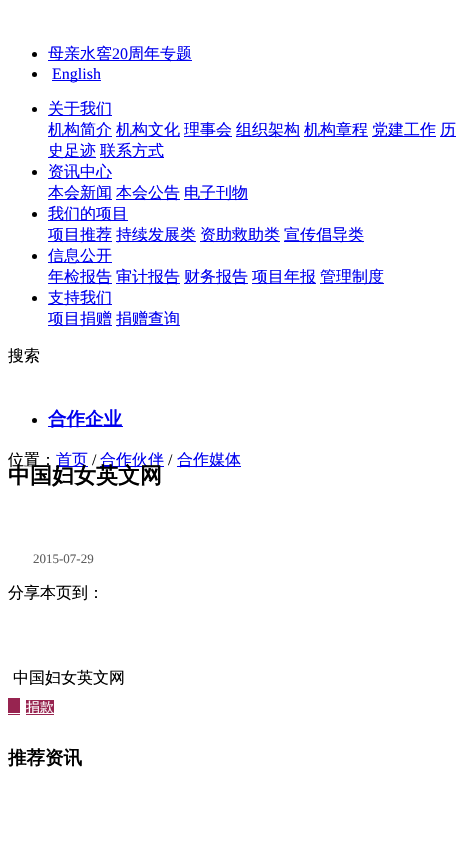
#include "include/core/SkBlurTypes.h"
#include "include/core/SkCanvas.h"
#include "include/core/SkData.h"
#include "include/core/SkFont.h"
#include "include/core/SkFontMgr.h"
#include "include/core/SkImage.h"
#include "include/core/SkMaskFilter.h"
#include "include/core/SkPaint.h"
#include "include/core/SkPathBuilder.h"
#include "include/core/SkTextBlob.h"
#include "include/effects/SkDashPathEffect.h"
#include "include/effects/SkGradientShader.h"
#include "include/utils/SkParsePath.h"

extern sk_sp<SkFontMgr> fontMgr;

void draw(SkCanvas* canvas) {
  SkPaint p;
  p.setAntiAlias(true);
  canvas->clear(SK_ColorWHITE);
  p.setColor(SK_ColorBLACK);
  canvas->drawCircle(34.5f, 54.5f, 2.5f, p);
  p.setColor(SkColorSetRGB(0, 0, 238));
  canvas->drawRect(SkRect::MakeLTRB(48, 60, 192, 61), p);
  p.setColor(SK_ColorBLACK);
  canvas->drawCircle(34.5f, 74.5f, 2.5f, p);
  p.setColor(SkColorSetRGB(0, 0, 238));
  canvas->drawRect(SkRect::MakeLTRB(52, 80, 101, 81), p);
  p.setColor(SK_ColorBLACK);
  canvas->drawCircle(34.5f, 109.5f, 2.5f, p);
  p.setColor(SkColorSetRGB(0, 0, 238));
  canvas->drawRect(SkRect::MakeLTRB(48, 115, 112, 116), p);
  canvas->drawRect(SkRect::MakeLTRB(48, 136, 112, 137), p);
  canvas->drawRect(SkRect::MakeLTRB(116, 136, 180, 137), p);
  canvas->drawRect(SkRect::MakeLTRB(184, 136, 232, 137), p);
  canvas->drawRect(SkRect::MakeLTRB(236, 136, 300, 137), p);
  canvas->drawRect(SkRect::MakeLTRB(304, 136, 368, 137), p);
  canvas->drawRect(SkRect::MakeLTRB(372, 136, 436, 137), p);
  canvas->drawRect(SkRect::MakeLTRB(440, 136, 456, 137), p);
  canvas->drawRect(SkRect::MakeLTRB(48, 157, 96, 158), p);
  canvas->drawRect(SkRect::MakeLTRB(100, 157, 164, 158), p);
  p.setColor(SK_ColorBLACK);
  canvas->drawCircle(34.5f, 172.5f, 2.5f, p);
  p.setColor(SkColorSetRGB(0, 0, 238));
  canvas->drawRect(SkRect::MakeLTRB(48, 178, 112, 179), p);
  canvas->drawRect(SkRect::MakeLTRB(48, 199, 112, 200), p);
  canvas->drawRect(SkRect::MakeLTRB(116, 199, 180, 200), p);
  canvas->drawRect(SkRect::MakeLTRB(184, 199, 248, 200), p);
  p.setColor(SK_ColorBLACK);
  canvas->drawCircle(34.5f, 214.5f, 2.5f, p);
  p.setColor(SkColorSetRGB(0, 0, 238));
  canvas->drawRect(SkRect::MakeLTRB(48, 220, 128, 221), p);
  canvas->drawRect(SkRect::MakeLTRB(48, 241, 112, 242), p);
  canvas->drawRect(SkRect::MakeLTRB(116, 241, 196, 242), p);
  canvas->drawRect(SkRect::MakeLTRB(200, 241, 280, 242), p);
  canvas->drawRect(SkRect::MakeLTRB(284, 241, 364, 242), p);
  p.setColor(SK_ColorBLACK);
  canvas->drawCircle(34.5f, 256.5f, 2.5f, p);
  p.setColor(SkColorSetRGB(0, 0, 238));
  canvas->drawRect(SkRect::MakeLTRB(48, 262, 112, 263), p);
  canvas->drawRect(SkRect::MakeLTRB(48, 283, 112, 284), p);
  canvas->drawRect(SkRect::MakeLTRB(116, 283, 180, 284), p);
  canvas->drawRect(SkRect::MakeLTRB(184, 283, 248, 284), p);
  canvas->drawRect(SkRect::MakeLTRB(252, 283, 316, 284), p);
  canvas->drawRect(SkRect::MakeLTRB(320, 283, 384, 284), p);
  p.setColor(SK_ColorBLACK);
  canvas->drawCircle(34.5f, 298.5f, 2.5f, p);
  p.setColor(SkColorSetRGB(0, 0, 238));
  canvas->drawRect(SkRect::MakeLTRB(48, 304, 112, 305), p);
  canvas->drawRect(SkRect::MakeLTRB(48, 325, 112, 326), p);
  canvas->drawRect(SkRect::MakeLTRB(116, 325, 180, 326), p);
  p.setColor(SK_ColorBLACK);
  canvas->drawCircle(34.5f, 420.5f, 2.5f, p);
  p.setColor(SkColorSetRGB(0, 0, 238));
  canvas->drawRect(SkRect::MakeLTRB(48, 426, 123, 427), p);
  canvas->drawRect(SkRect::MakeLTRB(56, 466, 88, 467), p);
  canvas->drawRect(SkRect::MakeLTRB(100, 466, 164, 467), p);
  canvas->drawRect(SkRect::MakeLTRB(177, 466, 241, 467), p);
  p.setColor(SkColorSetRGB(151, 36, 80));
  canvas->drawRect(SkRect::MakeLTRB(8, 698, 20, 715), p);
  canvas->drawRect(SkRect::MakeLTRB(26, 700, 54, 715), p);
  p.setColor(SK_ColorWHITE);
  canvas->drawRect(SkRect::MakeLTRB(8, 713, 20, 714), p);
  canvas->drawRect(SkRect::MakeLTRB(26, 713, 54, 714), p);
  SkFont font1(fontMgr->matchFamilyStyle("WenQuanYi Zen Hei", SkFontStyle(500, SkFontStyle::kNormal_Width, SkFontStyle::kUpright_Slant)), 16);
  font1.setSubpixel(true);
  p.setColor(SkColorSetRGB(0, 0, 238));
  canvas->drawString("母亲水窖", 48, 59, font1, p);
  SkFont font2(fontMgr->matchFamilyStyle("Liberation Serif", SkFontStyle::Normal()), 16);
  font2.setSubpixel(true);
  canvas->drawString("20", 112, 59, font2, p);
  canvas->drawString("周年专题", 128, 59, font1, p);
  canvas->drawString("English", 52, 79, font2, p);
  canvas->drawString("关于我们", 48, 114, font1, p);
  canvas->drawString("机构简介", 48, 135, font1, p);
  canvas->drawString("机构文化", 116, 135, font1, p);
  canvas->drawString("理事会", 184, 135, font1, p);
  canvas->drawString("组织架构", 236, 135, font1, p);
  canvas->drawString("机构章程", 304, 135, font1, p);
  canvas->drawString("党建工作", 372, 135, font1, p);
  canvas->drawString("历", 440, 135, font1, p);
  canvas->drawString("史足迹", 48, 156, font1, p);
  canvas->drawString("联系方式", 100, 156, font1, p);
  canvas->drawString("资讯中心", 48, 177, font1, p);
  canvas->drawString("本会新闻", 48, 198, font1, p);
  canvas->drawString("本会公告", 116, 198, font1, p);
  canvas->drawString("电子刊物", 184, 198, font1, p);
  canvas->drawString("我们的项目", 48, 219, font1, p);
  canvas->drawString("项目推荐", 48, 240, font1, p);
  canvas->drawString("持续发展类", 116, 240, font1, p);
  canvas->drawString("资助救助类", 200, 240, font1, p);
  canvas->drawString("宣传倡导类", 284, 240, font1, p);
  canvas->drawString("信息公开", 48, 261, font1, p);
  canvas->drawString("年检报告", 48, 282, font1, p);
  canvas->drawString("审计报告", 116, 282, font1, p);
  canvas->drawString("财务报告", 184, 282, font1, p);
  canvas->drawString("项目年报", 252, 282, font1, p);
  canvas->drawString("管理制度", 320, 282, font1, p);
  canvas->drawString("支持我们", 48, 303, font1, p);
  canvas->drawString("项目捐赠", 48, 324, font1, p);
  canvas->drawString("捐赠查询", 116, 324, font1, p);
  p.setColor(SK_ColorBLACK);
  canvas->drawString("搜索", 8, 361, font1, p);
  SkFont font3(fontMgr->matchFamilyStyle("WenQuanYi Zen Hei", SkFontStyle::Bold()), 18.5f);
  font3.setSubpixel(true);
  p.setColor(SkColorSetRGB(0, 0, 238));
  canvas->drawString("合作企业", 48, 425, font3, p);
  p.setColor(SK_ColorBLACK);
  canvas->drawString("位置：", 8, 465, font1, p);
  p.setColor(SkColorSetRGB(0, 0, 238));
  canvas->drawString("首页", 56, 465, font1, p);
  p.setColor(SK_ColorBLACK);
  canvas->drawString("/", 92, 465, font2, p);
  p.setColor(SkColorSetRGB(0, 0, 238));
  canvas->drawString("合作伙伴", 100, 465, font1, p);
  p.setColor(SK_ColorBLACK);
  canvas->drawString("/", 168, 465, font2, p);
  p.setColor(SkColorSetRGB(0, 0, 238));
  canvas->drawString("合作媒体", 177, 465, font1, p);
  SkFont font4(fontMgr->matchFamilyStyle("WenQuanYi Zen Hei", SkFontStyle::Bold()), 22);
  font4.setSubpixel(true);
  p.setColor(SK_ColorBLACK);
  canvas->drawString("中国妇女英文网", 8, 483, font4, p);
  SkFont font5(fontMgr->matchFamilyStyle("Liberation Serif", SkFontStyle::Normal()), 13);
  font5.setSubpixel(true);
  p.setColor(SkColorSetRGB(94, 94, 94));
  canvas->drawString("2015-07-29", 33, 563, font5, p);
  p.setColor(SK_ColorBLACK);
  canvas->drawString("分享本页到：", 8, 598, font1, p);
  canvas->drawString("中国妇女英文网", 13, 683, font1, p);
  SkFont font6(fontMgr->matchFamilyStyle("WenQuanYi Zen Hei", SkFontStyle(500, SkFontStyle::kNormal_Width, SkFontStyle::kUpright_Slant)), 14);
  font6.setSubpixel(true);
  p.setColor(SK_ColorWHITE);
  canvas->drawString("捐款", 26, 712, font6, p);
  p.setColor(SK_ColorBLACK);
  canvas->drawString("推荐资讯", 8, 764, font3, p);
}
